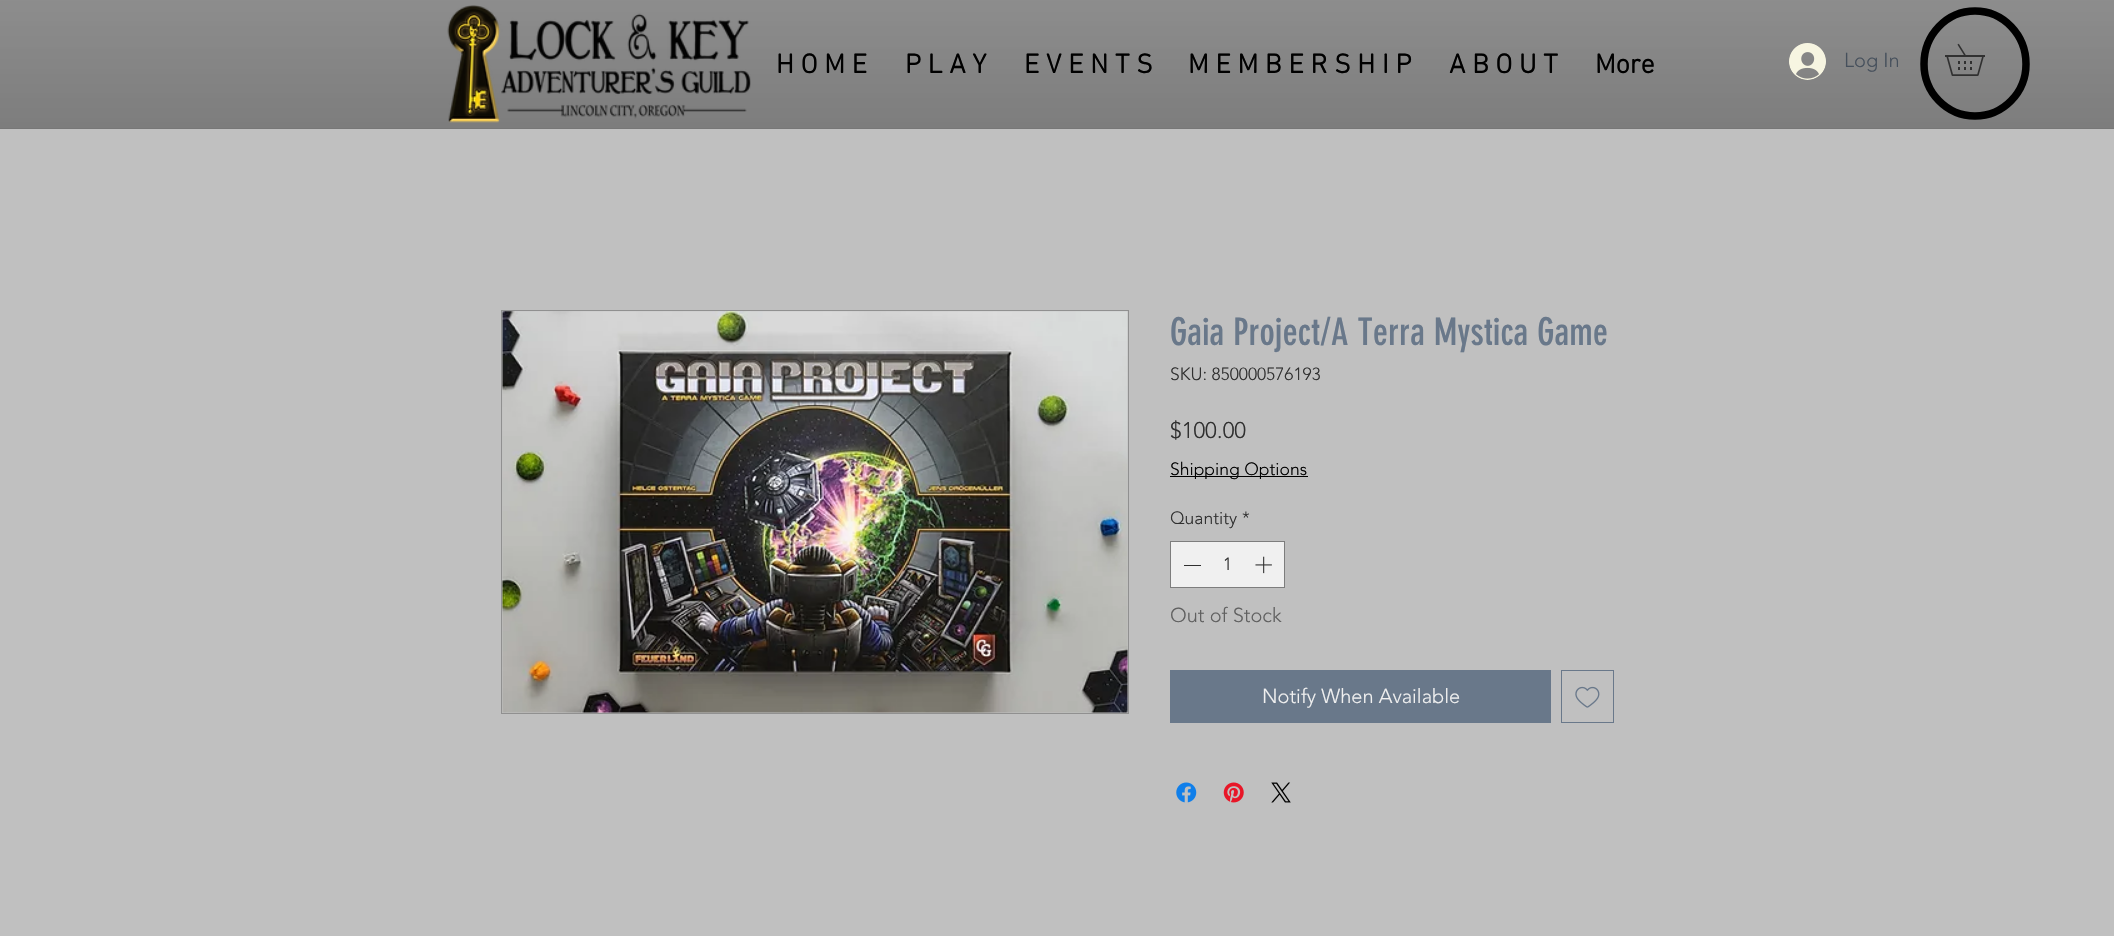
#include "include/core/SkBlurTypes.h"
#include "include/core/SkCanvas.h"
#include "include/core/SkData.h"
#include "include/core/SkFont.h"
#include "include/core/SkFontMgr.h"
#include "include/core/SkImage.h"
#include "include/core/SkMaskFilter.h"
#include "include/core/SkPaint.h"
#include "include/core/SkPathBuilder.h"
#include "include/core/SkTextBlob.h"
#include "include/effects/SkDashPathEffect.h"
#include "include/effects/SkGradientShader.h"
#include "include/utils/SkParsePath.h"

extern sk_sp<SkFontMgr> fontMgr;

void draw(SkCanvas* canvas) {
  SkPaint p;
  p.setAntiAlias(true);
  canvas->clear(SkColorSetRGB(192, 192, 192));
  p.setColor(SkColorSetRGB(101, 101, 101));
  canvas->drawRect(SkRect::MakeLTRB(0, 0, 2114, 129), p);
  canvas->drawImageRect(SkImages::DeferredFromEncodedData(SkData::MakeFromFileName("images/1.png")), SkRect::MakeLTRB(0, 0, 2114, 129), SkSamplingOptions());
  canvas->drawImageRect(SkImages::DeferredFromEncodedData(SkData::MakeFromFileName("images/2.png")), SkRect::MakeLTRB(447, 5, 751, 123), SkSamplingOptions());
  canvas->drawImageRect(SkImages::DeferredFromEncodedData(SkData::MakeFromFileName("images/3.png")), SkRect::MakeLTRB(1789, 43, 1826, 80), SkSamplingOptions());
  p.setStyle(SkPaint::kStroke_Style);
  p.setStrokeWidth(7.5f);
  p.setColor(SK_ColorBLACK);
  canvas->drawPath(SkPathBuilder().moveTo(1975, 11).cubicTo(2003.5f, 11, 2026, 35, 2026, 64).cubicTo(2026, 92.5f, 2003.5f, 116, 1975, 116).cubicTo(1946.5f, 116, 1924, 92.5f, 1924, 64).cubicTo(1924, 35, 1946.5f, 11, 1975, 11).close().detach(), p);
  canvas->drawImageRect(SkImages::DeferredFromEncodedData(SkData::MakeFromFileName("images/4.png")), SkRect::MakeLTRB(1945, 43, 1985, 76), SkSamplingOptions());
  p.setStrokeWidth(1);
  p.setColor(SkColorSetRGB(144, 144, 144));
  canvas->drawRect(SkRect::MakeLTRB(501.5f, 310.5f, 1128.5f, 713.5f), p);
  canvas->drawImageRect(SkImages::DeferredFromEncodedData(SkData::MakeFromFileName("images/5.png")), SkRect::MakeLTRB(502, 311, 1128, 713), SkSamplingOptions());
  p.setStyle(SkPaint::kFill_Style);
  p.setColor(SK_ColorBLACK);
  canvas->drawRect(SkRect::MakeLTRB(1170, 476, 1308, 477), p);
  p.setColor(SkColorSetRGB(240, 240, 240));
  canvas->drawRect(SkRect::MakeLTRB(1170.5f, 541.5f, 1284.5f, 587.5f), p);
  p.setStyle(SkPaint::kStroke_Style);
  p.setColor(SkColorSetRGB(125, 125, 125));
  canvas->drawRect(SkRect::MakeLTRB(1170.5f, 541.5f, 1284.5f, 587.5f), p);
  p.setStyle(SkPaint::kFill_Style);
  p.setColor(SkColorSetRGB(48, 48, 48));
  canvas->drawRect(SkRect::MakeLTRB(1184, 565, 1201, 566), p);
  canvas->drawImageRect(SkImages::DeferredFromEncodedData(SkData::MakeFromFileName("images/6.png")), SkRect::MakeLTRB(1255, 556, 1272, 574), SkSamplingOptions());
  p.setColor(SkColorSetRGB(105, 120, 138));
  canvas->drawRect(SkRect::MakeLTRB(1170, 670, 1551, 723), p);
  p.setStyle(SkPaint::kStroke_Style);
  canvas->drawRect(SkRect::MakeLTRB(1561.5f, 670.5f, 1613.5f, 722.5f), p);
  canvas->drawImageRect(SkImages::DeferredFromEncodedData(SkData::MakeFromFileName("images/7.png")), SkRect::MakeLTRB(1575, 686, 1600, 708), SkSamplingOptions());
  canvas->drawImageRect(SkImages::DeferredFromEncodedData(SkData::MakeFromFileName("images/8.png")), SkRect::MakeLTRB(1176, 782, 1197, 803), SkSamplingOptions());
  canvas->drawImageRect(SkImages::DeferredFromEncodedData(SkData::MakeFromFileName("images/9.png")), SkRect::MakeLTRB(1223, 782, 1244, 803), SkSamplingOptions());
  canvas->drawImageRect(SkImages::DeferredFromEncodedData(SkData::MakeFromFileName("images/10.png")), SkRect::MakeLTRB(1271, 782, 1291, 803), SkSamplingOptions());
  SkFont font1(fontMgr->matchFamilyStyle("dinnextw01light", SkFontStyle::Bold()), 27.5f);
  font1.setSubpixel(true);
  p.setStyle(SkPaint::kFill_Style);
  p.setColor(SK_ColorBLACK);
  canvas->drawString("H O M E", 776, 73, font1, p);
  canvas->drawString("P L A Y", 905, 73, font1, p);
  canvas->drawString("E V E N T S", 1024, 73, font1, p);
  canvas->drawString("M E M B E R S H I P", 1188, 73, font1, p);
  canvas->drawString("A B O U T", 1449, 73, font1, p);
  canvas->drawString("More", 1595, 73, font1, p);
  SkFont font2(fontMgr->matchFamilyStyle("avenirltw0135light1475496", SkFontStyle(300, SkFontStyle::kNormal_Width, SkFontStyle::kUpright_Slant)), 20);
  font2.setSubpixel(true);
  p.setColor(SkColorSetRGB(70, 80, 92));
  canvas->drawString("Log In", 1844, 67, font2, p);
  SkFont font3(fontMgr->matchFamilyStyle("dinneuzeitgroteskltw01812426", SkFontStyle::Normal()), 37.5f);
  font3.setSubpixel(true);
  p.setColor(SkColorSetRGB(105, 120, 138));
  canvas->drawString("Gaia Project/A Terra Mystica Game", 1170, 345, font3, p);
  SkFont font4(fontMgr->matchFamilyStyle("avenirltw0135light1475496", SkFontStyle(300, SkFontStyle::kNormal_Width, SkFontStyle::kUpright_Slant)), 17.5f);
  font4.setSubpixel(true);
  p.setColor(SkColorSetRGB(48, 48, 48));
  canvas->drawString("SKU: 850000576193", 1170, 380, font4, p);
  SkFont font5(fontMgr->matchFamilyStyle("avenirltw0135light1475496", SkFontStyle(300, SkFontStyle::kNormal_Width, SkFontStyle::kUpright_Slant)), 22.5f);
  font5.setSubpixel(true);
  canvas->drawString("$100.00", 1170, 438, font5, p);
  p.setColor(SK_ColorBLACK);
  canvas->drawString("Shipping Options", 1170, 475, font4, p);
  p.setColor(SkColorSetRGB(48, 48, 48));
  canvas->drawString("Quantity", 1170, 524, font4, p);
  canvas->drawString("*", 1242, 524, font4, p);
  canvas->drawString("1", 1223, 570, font4, p);
  p.setColor(SkColorSetRGB(96, 96, 96));
  canvas->drawString("Out of Stock", 1170, 622, font2, p);
  p.setColor(SkColorSetRGB(240, 240, 240));
  canvas->drawString("Notify When Available", 1262, 703, font2, p);
}
